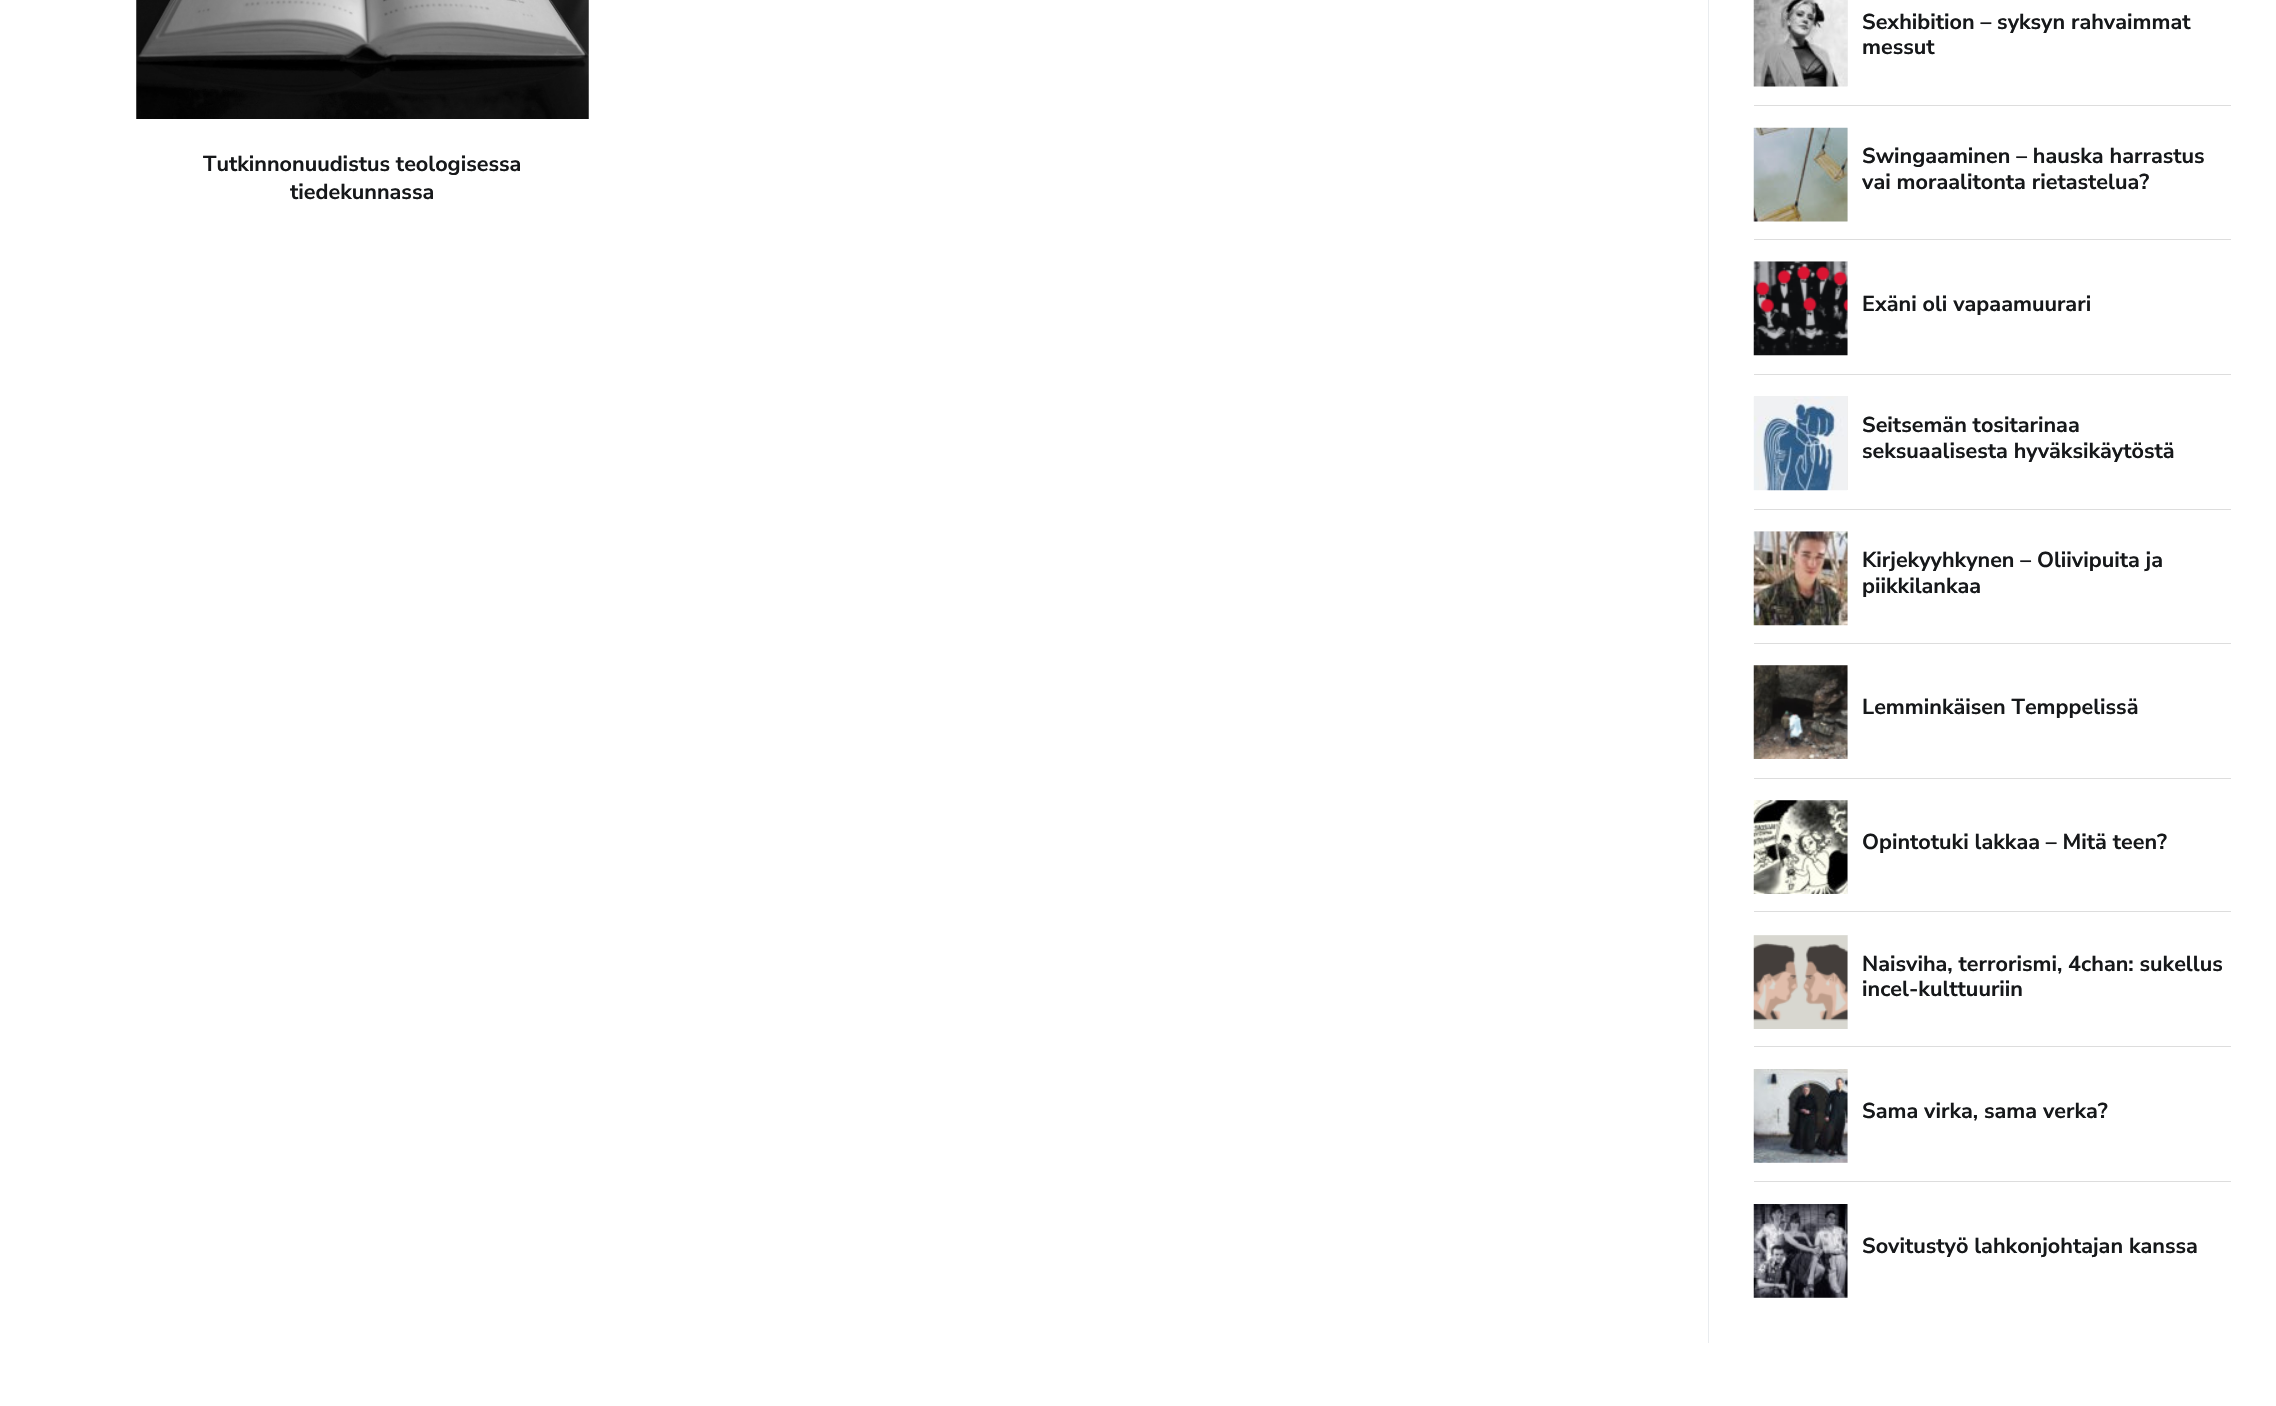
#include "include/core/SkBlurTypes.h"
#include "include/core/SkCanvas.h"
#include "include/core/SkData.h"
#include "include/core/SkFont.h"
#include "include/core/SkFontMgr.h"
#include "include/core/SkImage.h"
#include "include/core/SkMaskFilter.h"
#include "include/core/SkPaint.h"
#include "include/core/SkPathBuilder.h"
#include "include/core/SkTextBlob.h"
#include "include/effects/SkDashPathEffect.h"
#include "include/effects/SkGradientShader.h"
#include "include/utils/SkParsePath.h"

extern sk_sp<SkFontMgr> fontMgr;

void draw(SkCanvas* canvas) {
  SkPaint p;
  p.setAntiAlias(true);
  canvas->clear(SK_ColorWHITE);
  canvas->drawImageRect(SkImages::DeferredFromEncodedData(SkData::MakeFromFileName("images/1.png")), SkRect::MakeLTRB(136, 0, 589, 119), SkSamplingOptions());
  p.setColor(SkColorSetRGB(233, 236, 239));
  canvas->drawRect(SkRect::MakeLTRB(1708, 0, 1709, 1343), p);
  p.setColor(SkColorSetRGB(221, 221, 221));
  canvas->drawRect(SkRect::MakeLTRB(1754, 105, 2231, 106), p);
  p.setColor(SkColorSetRGB(240, 240, 240));
  canvas->drawRect(SkRect::MakeLTRB(1847, 0, 1848, 86), p);
  canvas->drawImageRect(SkImages::DeferredFromEncodedData(SkData::MakeFromFileName("images/2.png")), SkRect::MakeLTRB(1753, 0, 1848, 87), SkSamplingOptions());
  p.setColor(SkColorSetRGB(221, 221, 221));
  canvas->drawRect(SkRect::MakeLTRB(1754, 239, 2231, 240), p);
  p.setColor(SkColorSetRGB(240, 240, 240));
  canvas->drawRect(SkRect::MakeLTRB(1847, 128, 1848, 221), p);
  canvas->drawImageRect(SkImages::DeferredFromEncodedData(SkData::MakeFromFileName("images/3.png")), SkRect::MakeLTRB(1753, 127, 1848, 222), SkSamplingOptions());
  p.setColor(SkColorSetRGB(221, 221, 221));
  canvas->drawRect(SkRect::MakeLTRB(1754, 374, 2231, 375), p);
  p.setColor(SkColorSetRGB(240, 240, 240));
  canvas->drawRect(SkRect::MakeLTRB(1754, 261, 1848, 355), p);
  canvas->drawImageRect(SkImages::DeferredFromEncodedData(SkData::MakeFromFileName("images/4.png")), SkRect::MakeLTRB(1753, 261, 1848, 356), SkSamplingOptions());
  p.setColor(SkColorSetRGB(221, 221, 221));
  canvas->drawRect(SkRect::MakeLTRB(1754, 509, 2231, 510), p);
  p.setColor(SkColorSetRGB(240, 240, 240));
  canvas->drawRect(SkRect::MakeLTRB(1754, 396, 1848, 490), p);
  canvas->drawImageRect(SkImages::DeferredFromEncodedData(SkData::MakeFromFileName("images/5.png")), SkRect::MakeLTRB(1753, 396, 1847, 491), SkSamplingOptions());
  p.setColor(SkColorSetRGB(221, 221, 221));
  canvas->drawRect(SkRect::MakeLTRB(1754, 643, 2231, 644), p);
  p.setColor(SkColorSetRGB(240, 240, 240));
  canvas->drawRect(SkRect::MakeLTRB(1754, 531, 1848, 625), p);
  canvas->drawImageRect(SkImages::DeferredFromEncodedData(SkData::MakeFromFileName("images/6.png")), SkRect::MakeLTRB(1753, 531, 1848, 626), SkSamplingOptions());
  p.setColor(SkColorSetRGB(221, 221, 221));
  canvas->drawRect(SkRect::MakeLTRB(1754, 778, 2231, 779), p);
  p.setColor(SkColorSetRGB(240, 240, 240));
  canvas->drawRect(SkRect::MakeLTRB(1754, 665, 1848, 759), p);
  canvas->drawImageRect(SkImages::DeferredFromEncodedData(SkData::MakeFromFileName("images/7.png")), SkRect::MakeLTRB(1753, 665, 1848, 759), SkSamplingOptions());
  p.setColor(SkColorSetRGB(221, 221, 221));
  canvas->drawRect(SkRect::MakeLTRB(1754, 911, 2231, 912), p);
  p.setColor(SkColorSetRGB(240, 240, 240));
  canvas->drawRect(SkRect::MakeLTRB(1754, 800, 1848, 894), p);
  canvas->drawImageRect(SkImages::DeferredFromEncodedData(SkData::MakeFromFileName("images/8.png")), SkRect::MakeLTRB(1753, 800, 1848, 894), SkSamplingOptions());
  p.setColor(SkColorSetRGB(221, 221, 221));
  canvas->drawRect(SkRect::MakeLTRB(1754, 1046, 2231, 1047), p);
  p.setColor(SkColorSetRGB(240, 240, 240));
  canvas->drawRect(SkRect::MakeLTRB(1754, 935, 1848, 1029), p);
  canvas->drawImageRect(SkImages::DeferredFromEncodedData(SkData::MakeFromFileName("images/9.png")), SkRect::MakeLTRB(1753, 935, 1848, 1029), SkSamplingOptions());
  p.setColor(SkColorSetRGB(221, 221, 221));
  canvas->drawRect(SkRect::MakeLTRB(1754, 1181, 2231, 1182), p);
  p.setColor(SkColorSetRGB(240, 240, 240));
  canvas->drawRect(SkRect::MakeLTRB(1754, 1069, 1848, 1163), p);
  canvas->drawImageRect(SkImages::DeferredFromEncodedData(SkData::MakeFromFileName("images/10.png")), SkRect::MakeLTRB(1753, 1069, 1848, 1163), SkSamplingOptions());
  canvas->drawRect(SkRect::MakeLTRB(1754, 1204, 1848, 1298), p);
  canvas->drawImageRect(SkImages::DeferredFromEncodedData(SkData::MakeFromFileName("images/11.png")), SkRect::MakeLTRB(1753, 1204, 1848, 1298), SkSamplingOptions());
  SkFont font1(fontMgr->matchFamilyStyle("Nunito Sans", SkFontStyle(200, SkFontStyle::kNormal_Width, SkFontStyle::kUpright_Slant)), 21.6f);
  font1.setSubpixel(true);
  p.setColor(SkColorSetRGB(22, 24, 26));
  canvas->drawString("Tutkinnonuudistus teologisessa", 203, 171, font1, p);
  canvas->drawString("tiedekunnassa", 290, 199, font1, p);
  canvas->drawString("Sexhibition – syksyn rahvaimmat", 1862, 29, font1, p);
  canvas->drawString("messut", 1862, 54, font1, p);
  canvas->drawString("Swingaaminen – hauska harrastus", 1862, 163, font1, p);
  canvas->drawString("vai moraalitonta rietastelua?", 1862, 189, font1, p);
  canvas->drawString("Exäni oli vapaamuurari", 1862, 311, font1, p);
  canvas->drawString("Seitsemän tositarinaa", 1862, 432, font1, p);
  canvas->drawString("seksuaalisesta hyväksikäytöstä", 1862, 458, font1, p);
  canvas->drawString("Kirjekyyhkynen – Oliivipuita ja", 1862, 567, font1, p);
  canvas->drawString("piikkilankaa", 1862, 593, font1, p);
  canvas->drawString("Lemminkäisen Temppelissä", 1862, 714, font1, p);
  canvas->drawString("Opintotuki lakkaa – Mitä teen?", 1862, 849, font1, p);
  canvas->drawString("Naisviha, terrorismi, 4chan: sukellus", 1862, 971, font1, p);
  canvas->drawString("incel-kulttuuriin", 1862, 996, font1, p);
  canvas->drawString("Sama virka, sama verka?", 1862, 1118, font1, p);
  canvas->drawString("Sovitustyö lahkonjohtajan kanssa", 1862, 1253, font1, p);
}
